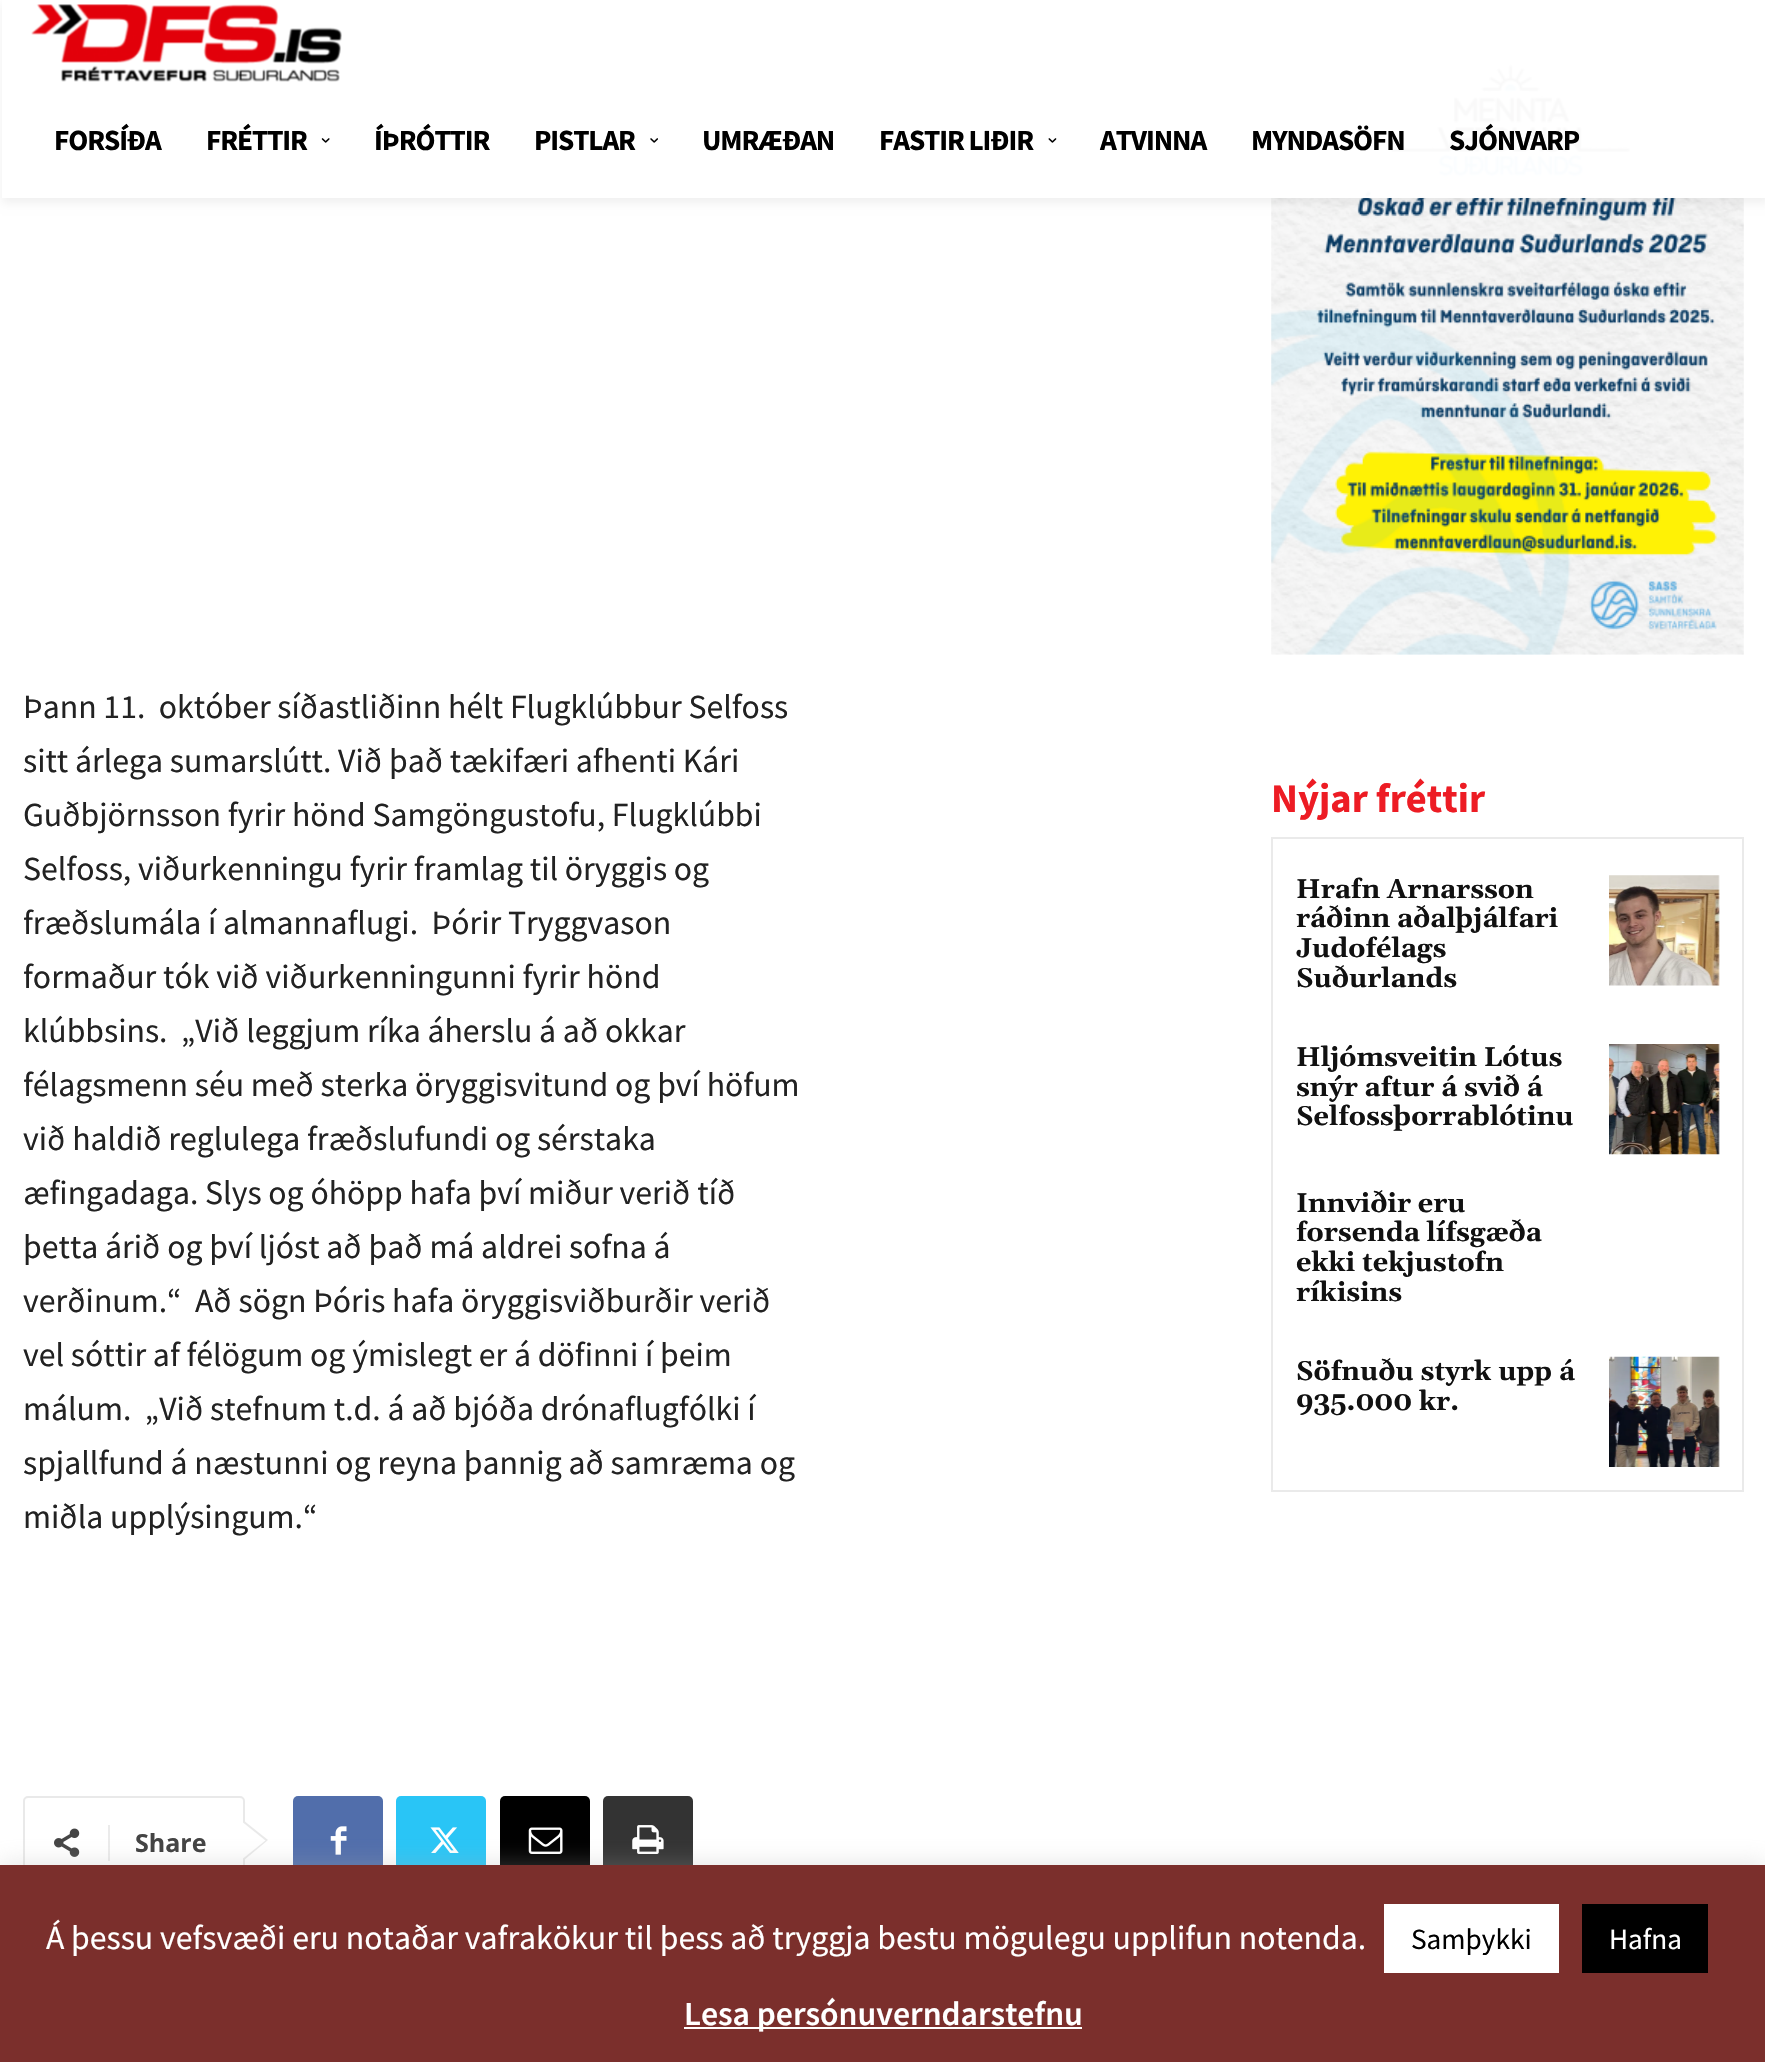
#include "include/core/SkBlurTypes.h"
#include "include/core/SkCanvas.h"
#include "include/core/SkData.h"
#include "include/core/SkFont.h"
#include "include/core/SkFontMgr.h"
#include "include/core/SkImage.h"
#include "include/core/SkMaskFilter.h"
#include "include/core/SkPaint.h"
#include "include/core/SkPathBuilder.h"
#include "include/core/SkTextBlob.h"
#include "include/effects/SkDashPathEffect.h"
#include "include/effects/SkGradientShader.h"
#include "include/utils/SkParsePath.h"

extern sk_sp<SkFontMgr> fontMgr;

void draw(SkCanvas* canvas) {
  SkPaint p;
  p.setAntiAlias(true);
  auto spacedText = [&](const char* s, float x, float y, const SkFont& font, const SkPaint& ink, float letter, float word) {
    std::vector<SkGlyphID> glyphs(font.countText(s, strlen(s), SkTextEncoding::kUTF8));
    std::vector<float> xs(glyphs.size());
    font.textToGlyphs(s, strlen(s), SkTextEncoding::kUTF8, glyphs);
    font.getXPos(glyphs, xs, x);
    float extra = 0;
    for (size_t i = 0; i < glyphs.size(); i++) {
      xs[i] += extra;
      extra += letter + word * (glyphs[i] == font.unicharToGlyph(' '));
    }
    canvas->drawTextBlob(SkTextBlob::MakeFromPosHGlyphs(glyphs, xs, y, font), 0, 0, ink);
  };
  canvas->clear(SK_ColorWHITE);
  canvas->drawImageRect(SkImages::DeferredFromEncodedData(SkData::MakeFromFileName("images/10.png")), SkRect::MakeLTRB(1271, 45, 1744, 655), SkSamplingOptions());
  p.setColor(SkColorSetARGB(247, 255, 255, 255));
  canvas->drawRect(SkRect::MakeLTRB(1271, 45, 1744, 198), p);
  canvas->drawImageRect(SkImages::DeferredFromEncodedData(SkData::MakeFromFileName("images/1.png")), SkRect::MakeLTRB(31, 4, 342, 82), SkSamplingOptions());
  canvas->save();
  canvas->clipPath(SkPathBuilder(SkPathFillType::kEvenOdd).moveTo(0, 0).lineTo(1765, 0).lineTo(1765, 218).lineTo(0, 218).close().moveTo(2, 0).lineTo(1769, 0).lineTo(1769, 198).lineTo(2, 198).close().detach(), true);
  p.setColor(SkColorSetARGB(15, 0, 0, 0));
  p.setMaskFilter(SkMaskFilter::MakeBlur(kNormal_SkBlurStyle, 4.5f));
  canvas->drawRect(SkRect::MakeLTRB(2, 5, 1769, 203), p);
  p.setMaskFilter(nullptr);
  canvas->restore();
  canvas->drawImageRect(SkImages::DeferredFromEncodedData(SkData::MakeFromFileName("images/2.png")), SkRect::MakeLTRB(321, 138, 330, 143), SkSamplingOptions());
  canvas->drawImageRect(SkImages::DeferredFromEncodedData(SkData::MakeFromFileName("images/3.png")), SkRect::MakeLTRB(650, 138, 658, 143), SkSamplingOptions());
  canvas->drawImageRect(SkImages::DeferredFromEncodedData(SkData::MakeFromFileName("images/4.png")), SkRect::MakeLTRB(1048, 138, 1057, 143), SkSamplingOptions());
  p.setStyle(SkPaint::kStroke_Style);
  p.setStrokeWidth(2);
  p.setColor(SkColorSetRGB(233, 233, 233));
  canvas->drawRoundRect(SkRect::MakeLTRB(24, 1797, 244, 1885), 4, 4, p);
  p.setStyle(SkPaint::kFill_Style);
  canvas->drawPath(SkPathBuilder().moveTo(243, 1861).lineTo(243, 1820).lineTo(268, 1840).close().detach(), p);
  canvas->drawImageRect(SkImages::DeferredFromEncodedData(SkData::MakeFromFileName("images/5.png")), SkRect::MakeLTRB(54, 1828, 80, 1857), SkSamplingOptions());
  p.setColor(SkColorSetRGB(235, 235, 235));
  canvas->drawRect(SkRect::MakeLTRB(108, 1825, 110, 1861), p);
  p.setColor(SK_ColorWHITE);
  canvas->drawPath(SkPathBuilder().moveTo(243, 1858.5f).lineTo(243, 1822.5f).lineTo(265.5f, 1840.5f).close().detach(), p);
  p.setColor(SkColorSetRGB(81, 110, 171));
  canvas->drawRoundRect(SkRect::MakeLTRB(293, 1796, 383, 1886), 5, 5, p);
  canvas->drawImageRect(SkImages::DeferredFromEncodedData(SkData::MakeFromFileName("images/6.png")), SkRect::MakeLTRB(330, 1826, 347, 1855), SkSamplingOptions());
  p.setColor(SkColorSetRGB(41, 197, 246));
  canvas->drawRoundRect(SkRect::MakeLTRB(396, 1796, 486, 1886), 5, 5, p);
  canvas->drawImageRect(SkImages::DeferredFromEncodedData(SkData::MakeFromFileName("images/7.png")), SkRect::MakeLTRB(430, 1827, 459, 1853), SkSamplingOptions());
  p.setColor(SK_ColorBLACK);
  canvas->drawRoundRect(SkRect::MakeLTRB(500, 1796, 590, 1886), 5, 5, p);
  canvas->drawImageRect(SkImages::DeferredFromEncodedData(SkData::MakeFromFileName("images/8.png")), SkRect::MakeLTRB(528, 1827, 563, 1854), SkSamplingOptions());
  p.setColor(SkColorSetRGB(51, 51, 51));
  canvas->drawRoundRect(SkRect::MakeLTRB(603, 1796, 693, 1886), 5, 5, p);
  canvas->drawImageRect(SkImages::DeferredFromEncodedData(SkData::MakeFromFileName("images/9.png")), SkRect::MakeLTRB(632, 1825, 664, 1854), SkSamplingOptions());
  p.setStyle(SkPaint::kStroke_Style);
  p.setColor(SkColorSetRGB(234, 234, 234));
  canvas->drawRect(SkRect::MakeLTRB(1272, 838, 1743, 1491), p);
  canvas->drawImageRect(SkImages::DeferredFromEncodedData(SkData::MakeFromFileName("images/11.png")), SkRect::MakeLTRB(1609, 875, 1720, 986), SkSamplingOptions());
  canvas->drawImageRect(SkImages::DeferredFromEncodedData(SkData::MakeFromFileName("images/12.png")), SkRect::MakeLTRB(1609, 1044, 1720, 1155), SkSamplingOptions());
  canvas->drawImageRect(SkImages::DeferredFromEncodedData(SkData::MakeFromFileName("images/13.png")), SkRect::MakeLTRB(1609, 1356, 1720, 1467), SkSamplingOptions());
  p.setStyle(SkPaint::kFill_Style);
  p.setColor(SkColorSetARGB(77, 172, 171, 171));
  p.setMaskFilter(SkMaskFilter::MakeBlur(kNormal_SkBlurStyle, 11));
  canvas->drawRect(SkRect::MakeLTRB(0, 1863, 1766, 2061), p);
  p.setMaskFilter(nullptr);
  p.setColor(SkColorSetRGB(123, 47, 44));
  canvas->drawRect(SkRect::MakeLTRB(0, 1865, 1765, 2062), p);
  p.setColor(SK_ColorWHITE);
  canvas->drawRect(SkRect::MakeLTRB(1384, 1904, 1559, 1973), p);
  p.setColor(SK_ColorBLACK);
  canvas->drawRect(SkRect::MakeLTRB(1582, 1904, 1708, 1973), p);
  p.setColor(SK_ColorWHITE);
  canvas->drawRect(SkRect::MakeLTRB(684, 2027, 1082, 2029), p);
  SkFont font1(fontMgr->matchFamilyStyle("Source Sans Pro", SkFontStyle::Bold()), 29.25f);
  font1.setSubpixel(true);
  p.setColor(SK_ColorBLACK);
  spacedText("FORSÍÐA", 54, 150, font1, p, -1.1f, 0);
  spacedText("FRÉTTIR", 206, 150, font1, p, -1.1f, 0);
  spacedText("ÍÞRÓTTIR", 374, 150, font1, p, -1.1f, 0);
  spacedText("PISTLAR", 534, 150, font1, p, -1.1f, 0);
  spacedText("UMRÆÐAN", 702, 150, font1, p, -1.1f, 0);
  spacedText("FASTIR LIÐIR", 879, 150, font1, p, -1.1f, 0);
  spacedText("ATVINNA", 1100, 150, font1, p, -1.1f, 0);
  spacedText("MYNDASÖFN", 1251, 150, font1, p, -1.1f, 0);
  spacedText("SJÓNVARP", 1449, 150, font1, p, -1.1f, 0);
  SkFont font2(fontMgr->matchFamilyStyle("Source Sans Pro", SkFontStyle::Normal()), 33.75f);
  font2.setSubpixel(true);
  p.setColor(SkColorSetRGB(34, 34, 34));
  canvas->drawString("Þann 11.  október síðastliðinn hélt Flugklúbbur Selfoss", 23, 718, font2, p);
  canvas->drawString("sitt árlega sumarslútt. Við það tækifæri afhenti Kári", 23, 772, font2, p);
  canvas->drawString("Guðbjörnsson fyrir hönd Samgöngustofu, Flugklúbbi", 23, 826, font2, p);
  canvas->drawString("Selfoss, viðurkenningu fyrir framlag til öryggis og", 23, 880, font2, p);
  canvas->drawString("fræðslumála í almannaflugi.  Þórir Tryggvason", 23, 934, font2, p);
  canvas->drawString("formaður tók við viðurkenningunni fyrir hönd", 23, 988, font2, p);
  canvas->drawString("klúbbsins.  „Við leggjum ríka áherslu á að okkar", 23, 1042, font2, p);
  canvas->drawString("félagsmenn séu með sterka öryggisvitund og því höfum", 23, 1096, font2, p);
  canvas->drawString("við haldið reglulega fræðslufundi og sérstaka", 23, 1150, font2, p);
  canvas->drawString("æfingadaga. Slys og óhöpp hafa því miður verið tíð", 23, 1204, font2, p);
  canvas->drawString("þetta árið og því ljóst að það má aldrei sofna á", 23, 1258, font2, p);
  canvas->drawString("verðinum.“  Að sögn Þóris hafa öryggisviðburðir verið", 23, 1312, font2, p);
  canvas->drawString("vel sóttir af félögum og ýmislegt er á döfinni í þeim", 23, 1366, font2, p);
  canvas->drawString("málum.  „Við stefnum t.d. á að bjóða drónaflugfólki í", 23, 1420, font2, p);
  canvas->drawString("spjallfund á næstunni og reyna þannig að samræma og", 23, 1474, font2, p);
  canvas->drawString("miðla upplýsingum.“", 23, 1528, font2, p);
  SkFont font3(fontMgr->matchFamilyStyle("Open Sans", SkFontStyle::Bold()), 25);
  font3.setSubpixel(true);
  p.setColor(SkColorSetRGB(68, 68, 68));
  canvas->drawString("Share", 135, 1852, font3, p);
  SkFont font4(fontMgr->matchFamilyStyle("Source Sans Pro", SkFontStyle::Bold()), 40.5f);
  font4.setSubpixel(true);
  p.setColor(SkColorSetRGB(237, 28, 36));
  canvas->drawString("Nýjar fréttir", 1271, 812, font4, p);
  SkFont font5(fontMgr->matchFamilyStyle("Gelasio", SkFontStyle::Bold()), 27);
  font5.setSubpixel(true);
  p.setColor(SkColorSetRGB(17, 17, 17));
  canvas->drawString("Hrafn Arnarsson", 1296, 898, font5, p);
  canvas->drawString("ráðinn aðalþjálfari", 1296, 927, font5, p);
  canvas->drawString("Judofélags", 1296, 957, font5, p);
  canvas->drawString("Suðurlands", 1296, 987, font5, p);
  canvas->drawString("Hljómsveitin Lótus", 1296, 1066, font5, p);
  canvas->drawString("snýr aftur á svið á", 1296, 1096, font5, p);
  canvas->drawString("Selfossþorrablótinu", 1296, 1125, font5, p);
  canvas->drawString("Innviðir eru", 1296, 1212, font5, p);
  canvas->drawString("forsenda lífsgæða", 1296, 1241, font5, p);
  canvas->drawString("ekki tekjustofn", 1296, 1271, font5, p);
  canvas->drawString("ríkisins", 1296, 1301, font5, p);
  canvas->drawString("Söfnuðu styrk upp á", 1296, 1380, font5, p);
  canvas->drawString("935.000 kr.", 1296, 1410, font5, p);
  p.setColor(SK_ColorWHITE);
  canvas->drawString("Á þessu vefsvæði eru notaðar vafrakökur til þess að tryggja bestu mögulegu upplifun notenda.", 46, 1949, font2, p);
  SkFont font6(fontMgr->matchFamilyStyle("Source Sans Pro", SkFontStyle::Normal()), 29.25f);
  font6.setSubpixel(true);
  p.setColor(SK_ColorBLACK);
  canvas->drawString("Samþykki", 1411, 1949, font6, p);
  p.setColor(SK_ColorWHITE);
  canvas->drawString("Hafna", 1609, 1949, font6, p);
  SkFont font7(fontMgr->matchFamilyStyle("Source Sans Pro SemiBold", SkFontStyle(600, SkFontStyle::kNormal_Width, SkFontStyle::kUpright_Slant)), 33.75f);
  font7.setSubpixel(true);
  canvas->drawString("Lesa persónuverndarstefnu", 684, 2025, font7, p);
}
